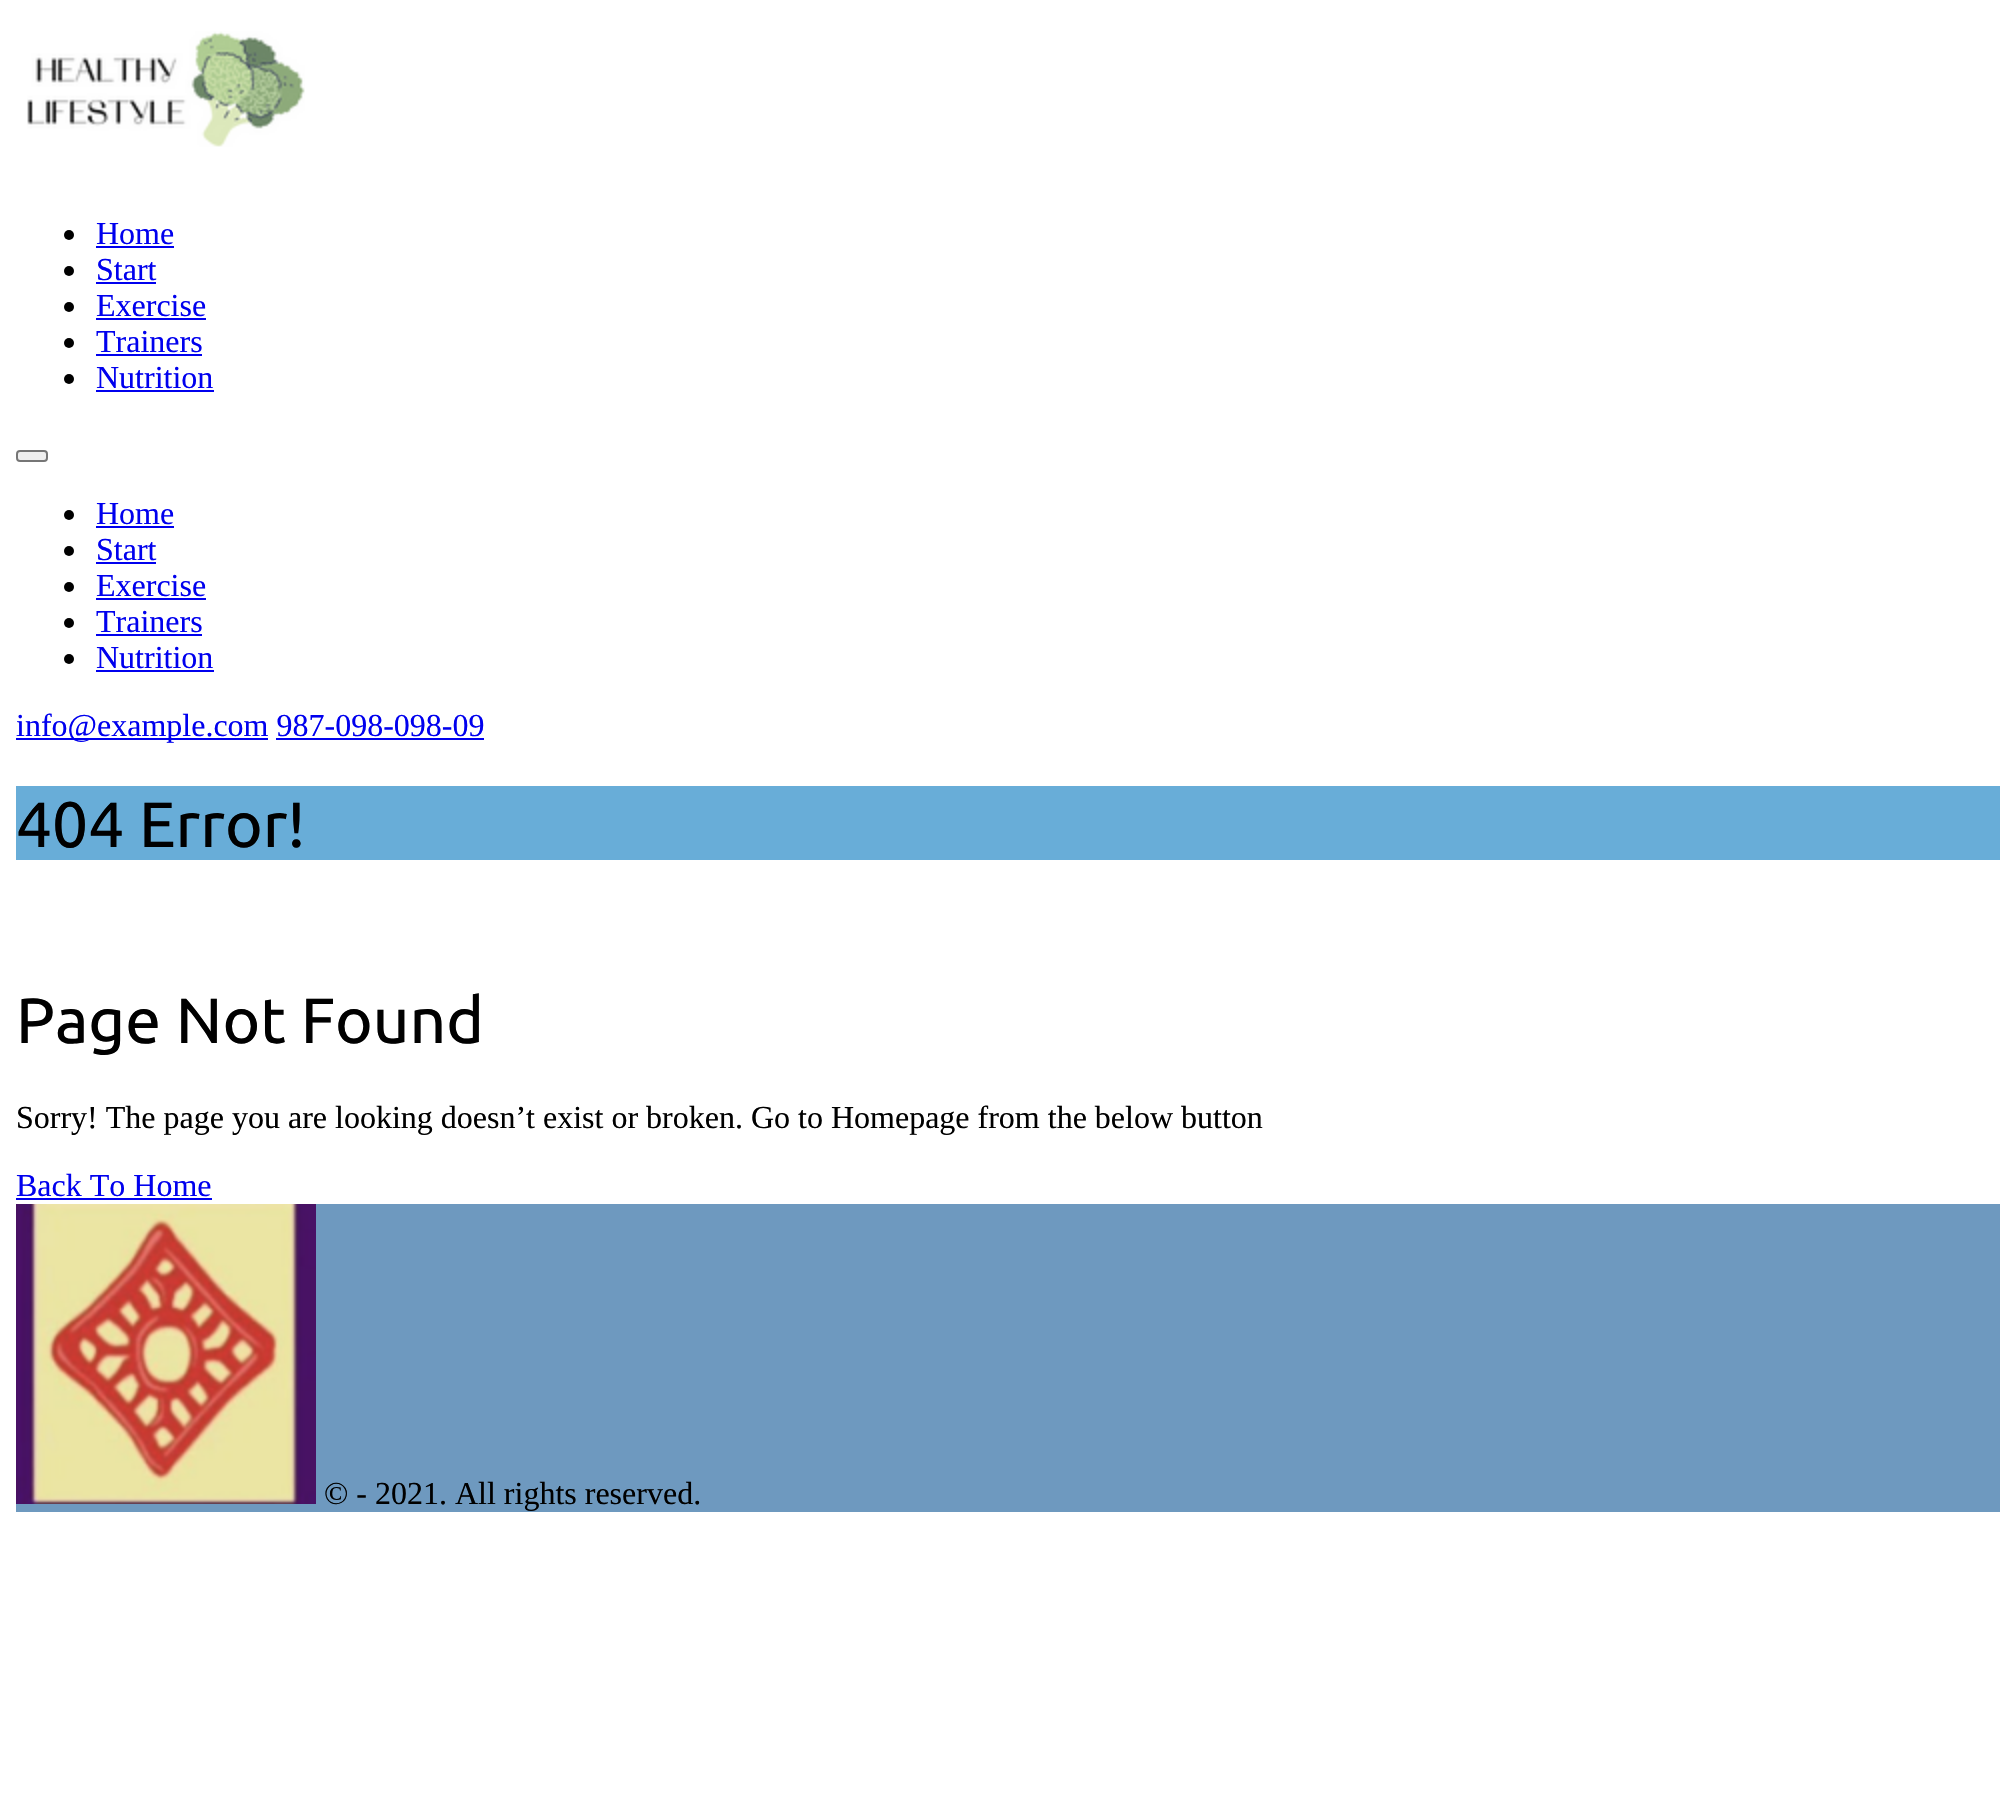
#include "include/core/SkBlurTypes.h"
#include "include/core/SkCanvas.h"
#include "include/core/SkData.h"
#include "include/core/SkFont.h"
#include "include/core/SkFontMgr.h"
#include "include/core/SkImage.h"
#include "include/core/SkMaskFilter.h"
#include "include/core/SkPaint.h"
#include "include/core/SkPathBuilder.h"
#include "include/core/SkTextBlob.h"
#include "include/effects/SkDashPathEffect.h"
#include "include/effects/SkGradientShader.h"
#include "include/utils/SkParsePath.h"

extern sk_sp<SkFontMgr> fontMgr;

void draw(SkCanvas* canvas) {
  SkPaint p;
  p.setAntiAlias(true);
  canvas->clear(SK_ColorWHITE);
  canvas->drawImageRect(SkImages::DeferredFromEncodedData(SkData::MakeFromFileName("images/1.png")), SkRect::MakeLTRB(27, 31, 305, 147), SkSamplingOptions());
  p.setColor(SK_ColorBLACK);
  canvas->drawCircle(69, 235, 5, p);
  p.setColor(SkColorSetRGB(0, 0, 238));
  canvas->drawRect(SkRect::MakeLTRB(96, 246, 174, 248), p);
  p.setColor(SK_ColorBLACK);
  canvas->drawCircle(69, 271, 5, p);
  p.setColor(SkColorSetRGB(0, 0, 238));
  canvas->drawRect(SkRect::MakeLTRB(96, 282, 156, 284), p);
  p.setColor(SK_ColorBLACK);
  canvas->drawCircle(69, 307, 5, p);
  p.setColor(SkColorSetRGB(0, 0, 238));
  canvas->drawRect(SkRect::MakeLTRB(96, 318, 206, 320), p);
  p.setColor(SK_ColorBLACK);
  canvas->drawCircle(69, 343, 5, p);
  p.setColor(SkColorSetRGB(0, 0, 238));
  canvas->drawRect(SkRect::MakeLTRB(96, 354, 202, 356), p);
  p.setColor(SK_ColorBLACK);
  canvas->drawCircle(69, 379, 5, p);
  p.setColor(SkColorSetRGB(0, 0, 238));
  canvas->drawRect(SkRect::MakeLTRB(96, 390, 214, 392), p);
  p.setColor(SkColorSetRGB(239, 239, 239));
  canvas->drawRoundRect(SkRect::MakeLTRB(17, 451, 47, 461), 3, 3, p);
  p.setStyle(SkPaint::kStroke_Style);
  p.setStrokeWidth(2);
  p.setColor(SkColorSetRGB(118, 118, 118));
  canvas->drawRoundRect(SkRect::MakeLTRB(17, 451, 47, 461), 3, 3, p);
  p.setStyle(SkPaint::kFill_Style);
  p.setColor(SK_ColorBLACK);
  canvas->drawCircle(69, 515, 5, p);
  p.setColor(SkColorSetRGB(0, 0, 238));
  canvas->drawRect(SkRect::MakeLTRB(96, 526, 174, 528), p);
  p.setColor(SK_ColorBLACK);
  canvas->drawCircle(69, 551, 5, p);
  p.setColor(SkColorSetRGB(0, 0, 238));
  canvas->drawRect(SkRect::MakeLTRB(96, 562, 156, 564), p);
  p.setColor(SK_ColorBLACK);
  canvas->drawCircle(69, 587, 5, p);
  p.setColor(SkColorSetRGB(0, 0, 238));
  canvas->drawRect(SkRect::MakeLTRB(96, 598, 206, 600), p);
  p.setColor(SK_ColorBLACK);
  canvas->drawCircle(69, 623, 5, p);
  p.setColor(SkColorSetRGB(0, 0, 238));
  canvas->drawRect(SkRect::MakeLTRB(96, 634, 202, 636), p);
  p.setColor(SK_ColorBLACK);
  canvas->drawCircle(69, 659, 5, p);
  p.setColor(SkColorSetRGB(0, 0, 238));
  canvas->drawRect(SkRect::MakeLTRB(96, 670, 214, 672), p);
  canvas->drawRect(SkRect::MakeLTRB(16, 738, 268, 740), p);
  canvas->drawRect(SkRect::MakeLTRB(276, 738, 484, 740), p);
  p.setColor(SkColorSetRGB(104, 173, 216));
  canvas->drawRect(SkRect::MakeLTRB(16, 786, 2000, 860), p);
  p.setColor(SkColorSetRGB(0, 0, 238));
  canvas->drawRect(SkRect::MakeLTRB(16, 1198, 212, 1200), p);
  p.setColor(SkColorSetRGB(110, 153, 191));
  canvas->drawRect(SkRect::MakeLTRB(16, 1204, 2000, 1512), p);
  canvas->drawImageRect(SkImages::DeferredFromEncodedData(SkData::MakeFromFileName("images/2.png")), SkRect::MakeLTRB(16, 1204, 316, 1504), SkSamplingOptions());
  SkFont font1(fontMgr->matchFamilyStyle("Liberation Serif", SkFontStyle::Normal()), 32);
  font1.setSubpixel(true);
  p.setColor(SkColorSetRGB(0, 0, 238));
  canvas->drawString("Home", 96, 244, font1, p);
  canvas->drawString("Start", 96, 280, font1, p);
  canvas->drawString("Exercise", 96, 316, font1, p);
  canvas->drawString("Trainers", 96, 352, font1, p);
  canvas->drawString("Nutrition", 96, 388, font1, p);
  canvas->drawString("Home", 96, 524, font1, p);
  canvas->drawString("Start", 96, 560, font1, p);
  canvas->drawString("Exercise", 96, 596, font1, p);
  canvas->drawString("Trainers", 96, 632, font1, p);
  canvas->drawString("Nutrition", 96, 668, font1, p);
  canvas->drawString("info@example.com 987-098-098-09", 16, 736, font1, p);
  SkFont font2(fontMgr->matchFamilyStyle("Ubuntu", SkFontStyle::Normal()), 64);
  font2.setSubpixel(true);
  p.setColor(SK_ColorBLACK);
  canvas->drawString("404 Error!", 16, 847, font2, p);
  canvas->drawString("Page Not Found", 16, 1043, font2, p);
  canvas->drawString("Sorry! The page you are looking doesn’t exist or broken. Go to Homepage from the below button", 16, 1128, font1, p);
  p.setColor(SkColorSetRGB(0, 0, 238));
  canvas->drawString("Back To Home", 16, 1196, font1, p);
  p.setColor(SK_ColorBLACK);
  canvas->drawString("© - 2021. All rights reserved.", 324, 1504, font1, p);
}
